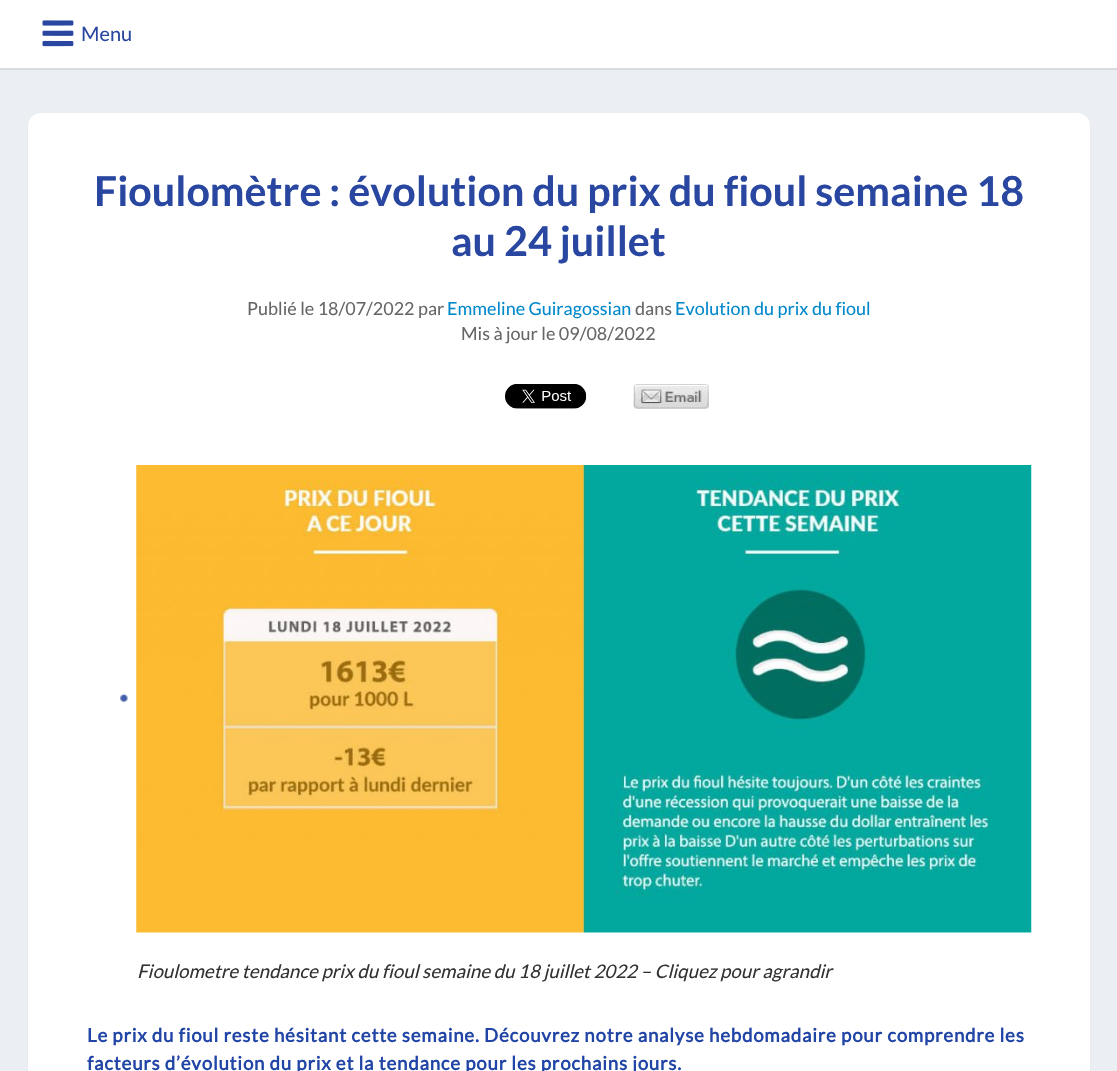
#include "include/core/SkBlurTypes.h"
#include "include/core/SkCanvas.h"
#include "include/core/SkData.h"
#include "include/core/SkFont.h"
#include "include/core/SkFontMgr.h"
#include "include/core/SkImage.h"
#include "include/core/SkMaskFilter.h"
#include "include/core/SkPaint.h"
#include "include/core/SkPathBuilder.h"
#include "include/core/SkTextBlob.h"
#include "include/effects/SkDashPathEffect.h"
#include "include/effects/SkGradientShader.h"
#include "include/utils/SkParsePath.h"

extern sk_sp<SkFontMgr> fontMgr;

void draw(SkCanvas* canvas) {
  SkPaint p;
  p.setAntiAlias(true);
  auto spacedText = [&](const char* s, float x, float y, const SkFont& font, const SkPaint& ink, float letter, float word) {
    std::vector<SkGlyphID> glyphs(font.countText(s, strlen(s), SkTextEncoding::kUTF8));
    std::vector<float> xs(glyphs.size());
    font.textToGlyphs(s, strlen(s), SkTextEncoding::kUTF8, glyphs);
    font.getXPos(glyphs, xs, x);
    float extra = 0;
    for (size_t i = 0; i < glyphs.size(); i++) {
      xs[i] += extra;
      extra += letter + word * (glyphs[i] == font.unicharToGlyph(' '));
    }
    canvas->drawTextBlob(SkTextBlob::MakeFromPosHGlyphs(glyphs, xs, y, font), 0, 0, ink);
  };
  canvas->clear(SkColorSetRGB(235, 238, 242));
  p.setColor(SkColorSetRGB(216, 219, 223));
  canvas->drawPath(SkPathBuilder().moveTo(0, 68).lineTo(0, 70).lineTo(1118, 70).lineTo(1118, 3).lineTo(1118, 68).close().detach(), p);
  p.setColor(SK_ColorWHITE);
  canvas->drawRect(SkRect::MakeLTRB(0, 0, 1117, 68), p);
  canvas->drawImageRect(SkImages::DeferredFromEncodedData(SkData::MakeFromFileName("images/1.png")), SkRect::MakeLTRB(42, 20, 74, 47), SkSamplingOptions());
  p.setColor(SkColorSetARGB(191, 204, 205, 211));
  p.setMaskFilter(SkMaskFilter::MakeBlur(kNormal_SkBlurStyle, 0.5f));
  canvas->drawRoundRect(SkRect::MakeLTRB(28, 115, 1090, 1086), 13, 13, p);
  p.setMaskFilter(nullptr);
  p.setColor(SK_ColorWHITE);
  canvas->drawRoundRect(SkRect::MakeLTRB(28, 113, 1090, 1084), 13, 13, p);
  canvas->drawImageRect(SkImages::DeferredFromEncodedData(SkData::MakeFromFileName("images/2.png")), SkRect::MakeLTRB(505, 384, 587, 409), SkSamplingOptions());
  canvas->drawImageRect(SkImages::DeferredFromEncodedData(SkData::MakeFromFileName("images/3.png")), SkRect::MakeLTRB(633, 384, 709, 409), SkSamplingOptions());
  canvas->drawImageRect(SkImages::DeferredFromEncodedData(SkData::MakeFromFileName("images/4.png")), SkRect::MakeLTRB(120, 693, 128, 703), SkSamplingOptions());
  canvas->drawImageRect(SkImages::DeferredFromEncodedData(SkData::MakeFromFileName("images/5.png")), SkRect::MakeLTRB(136, 465, 1032, 933), SkSamplingOptions());
  SkFont font1(fontMgr->matchFamilyStyle("Lato", SkFontStyle::Normal()), 20);
  font1.setSubpixel(true);
  p.setColor(SkColorSetRGB(41, 71, 160));
  canvas->drawString("Menu", 81, 41, font1, p);
  SkFont font2(fontMgr->matchFamilyStyle("Lato", SkFontStyle::Bold()), 41.25f);
  font2.setSubpixel(true);
  canvas->drawString("Fioulomètre : évolution du prix du fioul semaine 18", 94, 206, font2, p);
  canvas->drawString("au 24 juillet", 451, 256, font2, p);
  SkFont font3(fontMgr->matchFamilyStyle("Lato", SkFontStyle::Normal()), 18);
  font3.setSubpixel(true);
  p.setColor(SkColorSetRGB(102, 102, 102));
  canvas->drawString("Publié le 18/07/2022 par", 247, 315, font3, p);
  p.setColor(SkColorSetRGB(0, 136, 204));
  canvas->drawString("Emmeline Guiragossian", 447, 315, font3, p);
  p.setColor(SkColorSetRGB(102, 102, 102));
  canvas->drawString("dans", 635, 315, font3, p);
  p.setColor(SkColorSetRGB(0, 136, 204));
  canvas->drawString("Evolution du prix du fioul", 675, 315, font3, p);
  p.setColor(SkColorSetRGB(102, 102, 102));
  canvas->drawString("Mis à jour le 09/08/2022", 461, 340, font3, p);
  SkFont font4(fontMgr->matchFamilyStyle("Lato", SkFontStyle::Italic()), 18.75f);
  font4.setSubpixel(true);
  p.setColor(SkColorSetRGB(51, 51, 51));
  canvas->drawString("Fioulometre tendance prix du fioul semaine du 18 juillet 2022 – Cliquez pour agrandir", 137, 978, font4, p);
  SkFont font5(fontMgr->matchFamilyStyle("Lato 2", SkFontStyle::Bold()), 18.75f);
  font5.setSubpixel(true);
  p.setColor(SkColorSetRGB(33, 69, 166));
  spacedText("Le prix du fioul reste hésitant cette semaine. Découvrez notre analyse hebdomadaire pour comprendre les", 87, 1042, font5, p, 0.75f, 0);
  spacedText("facteurs d’évolution du prix et la tendance pour les prochains jours.", 87, 1070, font5, p, 0.75f, 0);
}
